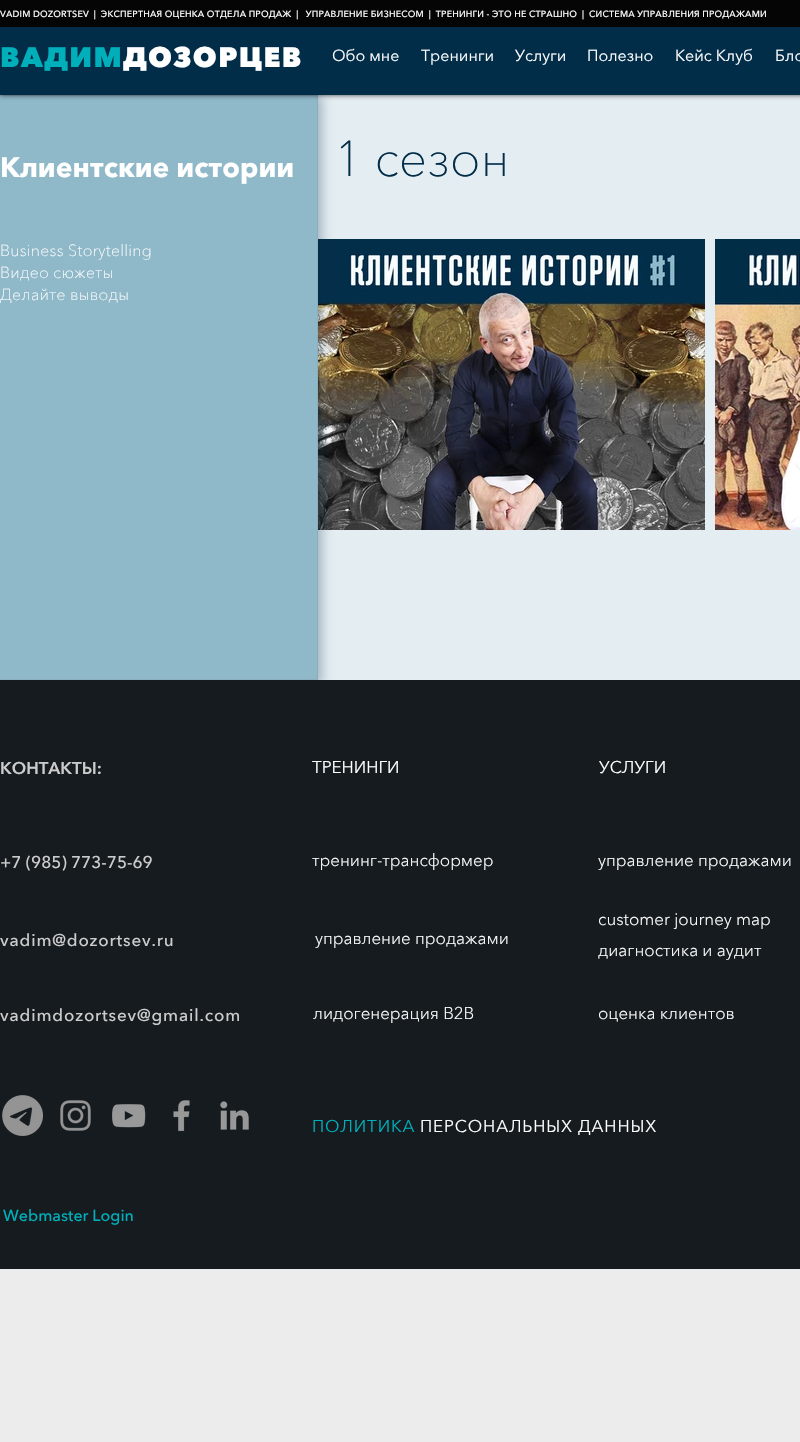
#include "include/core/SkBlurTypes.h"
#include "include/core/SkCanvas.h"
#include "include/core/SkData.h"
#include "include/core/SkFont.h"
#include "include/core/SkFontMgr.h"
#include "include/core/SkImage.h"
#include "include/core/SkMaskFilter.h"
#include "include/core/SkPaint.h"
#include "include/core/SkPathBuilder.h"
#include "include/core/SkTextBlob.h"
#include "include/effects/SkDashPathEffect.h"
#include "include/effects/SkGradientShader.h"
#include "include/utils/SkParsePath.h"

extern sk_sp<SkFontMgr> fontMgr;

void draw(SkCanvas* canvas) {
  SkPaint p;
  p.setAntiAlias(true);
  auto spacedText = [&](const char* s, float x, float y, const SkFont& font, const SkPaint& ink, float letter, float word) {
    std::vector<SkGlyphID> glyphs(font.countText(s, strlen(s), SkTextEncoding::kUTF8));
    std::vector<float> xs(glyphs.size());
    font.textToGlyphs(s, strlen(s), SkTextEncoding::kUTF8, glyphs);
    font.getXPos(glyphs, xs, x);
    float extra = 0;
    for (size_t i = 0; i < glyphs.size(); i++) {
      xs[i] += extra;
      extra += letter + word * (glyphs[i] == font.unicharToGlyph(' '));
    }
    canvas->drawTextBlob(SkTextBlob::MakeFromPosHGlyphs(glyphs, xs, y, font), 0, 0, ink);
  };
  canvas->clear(SkColorSetRGB(236, 236, 236));
  p.setColor(SkColorSetRGB(228, 237, 242));
  canvas->drawRect(SkRect::MakeLTRB(318, 95, 800, 680), p);
  canvas->drawImageRect(SkImages::DeferredFromEncodedData(SkData::MakeFromFileName("images/1.png")), SkRect::MakeLTRB(318, 239, 705, 530), SkSamplingOptions());
  p.setColor(SkColorSetARGB(87, 2, 45, 73));
  p.setMaskFilter(SkMaskFilter::MakeBlur(kNormal_SkBlurStyle, 6));
  canvas->drawRect(SkRect::MakeLTRB(-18, 95, 321, 686), p);
  p.setMaskFilter(nullptr);
  p.setColor(SkColorSetRGB(143, 184, 201));
  canvas->drawRect(SkRect::MakeLTRB(-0.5f, 95.5f, 317.5f, 679.5f), p);
  p.setStyle(SkPaint::kStroke_Style);
  p.setStrokeWidth(1);
  p.setColor(SkColorSetRGB(139, 174, 188));
  canvas->drawRect(SkRect::MakeLTRB(-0.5f, 95.5f, 317.5f, 679.5f), p);
  p.setStyle(SkPaint::kFill_Style);
  p.setColor(SkColorSetARGB(179, 0, 0, 0));
  p.setMaskFilter(SkMaskFilter::MakeBlur(kNormal_SkBlurStyle, 2.5f));
  canvas->drawRect(SkRect::MakeLTRB(0, 0, 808, 95), p);
  p.setMaskFilter(nullptr);
  p.setColor(SkColorSetRGB(2, 45, 73));
  canvas->drawRect(SkRect::MakeLTRB(0, 27, 800, 95), p);
  p.setColor(SkColorSetRGB(5, 5, 5));
  canvas->drawRect(SkRect::MakeLTRB(0, 0, 800, 27), p);
  canvas->drawImageRect(SkImages::DeferredFromEncodedData(SkData::MakeFromFileName("images/2.png")), SkRect::MakeLTRB(715, 239, 800, 530), SkSamplingOptions());
  p.setColor(SkColorSetRGB(21, 27, 31));
  canvas->drawRect(SkRect::MakeLTRB(0, 680, 800, 1269), p);
  canvas->drawImageRect(SkImages::DeferredFromEncodedData(SkData::MakeFromFileName("images/3.png")), SkRect::MakeLTRB(2, 1095, 43, 1136), SkSamplingOptions());
  canvas->drawImageRect(SkImages::DeferredFromEncodedData(SkData::MakeFromFileName("images/4.png")), SkRect::MakeLTRB(60, 1100, 91, 1131), SkSamplingOptions());
  canvas->drawImageRect(SkImages::DeferredFromEncodedData(SkData::MakeFromFileName("images/5.png")), SkRect::MakeLTRB(112, 1104, 146, 1128), SkSamplingOptions());
  canvas->drawImageRect(SkImages::DeferredFromEncodedData(SkData::MakeFromFileName("images/6.png")), SkRect::MakeLTRB(173, 1100, 190, 1132), SkSamplingOptions());
  canvas->drawImageRect(SkImages::DeferredFromEncodedData(SkData::MakeFromFileName("images/7.png")), SkRect::MakeLTRB(220, 1101, 249, 1130), SkSamplingOptions());
  SkFont font1(fontMgr->matchFamilyStyle("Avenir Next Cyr", SkFontStyle(500, SkFontStyle::kNormal_Width, SkFontStyle::kUpright_Slant)), 9);
  font1.setSubpixel(true);
  p.setColor(SK_ColorWHITE);
  spacedText("VADIM DOZORTSEV  |  ЭКСПЕРТНАЯ ОЦЕНКА ОТДЕЛА ПРОДАЖ  |   УПРАВЛЕНИЕ БИЗНЕСОМ  |  ТРЕНИНГИ - ЭТО НЕ СТРАШНО  |  СИСТЕМА УПРАВЛЕНИЯ ПРОДАЖАМИ", 0, 17, font1, p, 0.18f, 0);
  SkFont font2(fontMgr->matchFamilyStyle("Avenir Next Cyr", SkFontStyle(900, SkFontStyle::kNormal_Width, SkFontStyle::kUpright_Slant)), 28);
  font2.setSubpixel(true);
  p.setColor(SkColorSetRGB(0, 175, 186));
  spacedText("ВАДИМ", 0, 67, font2, p, 1.5f, 0);
  p.setColor(SK_ColorWHITE);
  spacedText("ДОЗОРЦЕВ", 123, 67, font2, p, 1.5f, 0);
  SkFont font3(fontMgr->matchFamilyStyle("Avenir Next Cyr", SkFontStyle::Normal()), 16);
  font3.setSubpixel(true);
  canvas->drawString("Обо мне", 332, 61, font3, p);
  canvas->drawString("Тренинги", 421, 61, font3, p);
  canvas->drawString("Услуги", 515, 61, font3, p);
  canvas->drawString("Полезно", 587, 61, font3, p);
  canvas->drawString("Кейс Клуб", 675, 61, font3, p);
  canvas->drawString("Бло", 775, 61, font3, p);
  SkFont font4(fontMgr->matchFamilyStyle("Avenir Next Cyr", SkFontStyle::Bold()), 28);
  font4.setSubpixel(true);
  canvas->drawString("Клиентские истории", 0, 177, font4, p);
  SkFont font5(fontMgr->matchFamilyStyle("Avenir Next Cyr", SkFontStyle(100, SkFontStyle::kNormal_Width, SkFontStyle::kUpright_Slant)), 16);
  font5.setSubpixel(true);
  spacedText("Business Storytelling", 0, 256, font5, p, 0.3f, 0);
  spacedText("Видео сюжеты", 0, 278, font5, p, 0.3f, 0);
  spacedText("Делайте выводы", 0, 300, font5, p, 0.3f, 0);
  SkFont font6(fontMgr->matchFamilyStyle("Avenir Next Cyr", SkFontStyle(100, SkFontStyle::kNormal_Width, SkFontStyle::kUpright_Slant)), 50);
  font6.setSubpixel(true);
  p.setColor(SkColorSetRGB(2, 45, 73));
  canvas->drawString("1 сезон", 334, 176, font6, p);
  SkFont font7(fontMgr->matchFamilyStyle("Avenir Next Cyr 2", SkFontStyle::Bold()), 17);
  font7.setSubpixel(true);
  p.setColor(SkColorSetRGB(204, 204, 204));
  canvas->drawString("КОНТАКТЫ:", 0, 774, font7, p);
  SkFont font8(fontMgr->matchFamilyStyle("Avenir Next Cyr", SkFontStyle::Normal()), 17);
  font8.setSubpixel(true);
  p.setColor(SK_ColorWHITE);
  canvas->drawString("ТРЕНИНГИ", 312, 773, font8, p);
  canvas->drawString("УСЛУГИ", 599, 773, font8, p);
  SkFont font9(fontMgr->matchFamilyStyle("Avenir Next Cyr", SkFontStyle(500, SkFontStyle::kNormal_Width, SkFontStyle::kUpright_Slant)), 17);
  font9.setSubpixel(true);
  p.setColor(SkColorSetRGB(204, 204, 204));
  canvas->drawString("+7 (985) 773-75-69", 0, 868, font9, p);
  SkFont font10(fontMgr->matchFamilyStyle("Avenir Next Cyr", SkFontStyle(300, SkFontStyle::kNormal_Width, SkFontStyle::kUpright_Slant)), 17);
  font10.setSubpixel(true);
  p.setColor(SK_ColorWHITE);
  canvas->drawString("тренинг-трансформер", 312, 866, font10, p);
  canvas->drawString("управление продажами", 598, 866, font10, p);
  canvas->drawString("customer journey map", 598, 925, font10, p);
  p.setColor(SkColorSetRGB(204, 204, 204));
  spacedText("vadim@dozortsev.ru", 0, 946, font9, p, 0.85f, 0);
  p.setColor(SK_ColorWHITE);
  canvas->drawString("управление продажами", 315, 944, font10, p);
  canvas->drawString("диагностика и аудит", 598, 956, font10, p);
  p.setColor(SkColorSetRGB(204, 204, 204));
  spacedText("vadimdozortsev@gmail.com", 0, 1021, font9, p, 0.85f, 0);
  p.setColor(SK_ColorWHITE);
  canvas->drawString("лидогенерация В2В", 313, 1019, font10, p);
  canvas->drawString("оценка клиентов", 598, 1019, font10, p);
  p.setColor(SkColorSetRGB(0, 175, 186));
  spacedText("ПОЛИТИКА", 312, 1132, font8, p, 0.85f, 0);
  p.setColor(SK_ColorWHITE);
  spacedText("ПЕРСОНАЛЬНЫХ ДАННЫХ", 420, 1132, font8, p, 0.85f, 0);
  SkFont font11(fontMgr->matchFamilyStyle("Avenir Next Cyr", SkFontStyle(500, SkFontStyle::kNormal_Width, SkFontStyle::kUpright_Slant)), 16);
  font11.setSubpixel(true);
  p.setColor(SkColorSetRGB(0, 175, 186));
  canvas->drawString("Webmaster Login", 3, 1221, font11, p);
}
